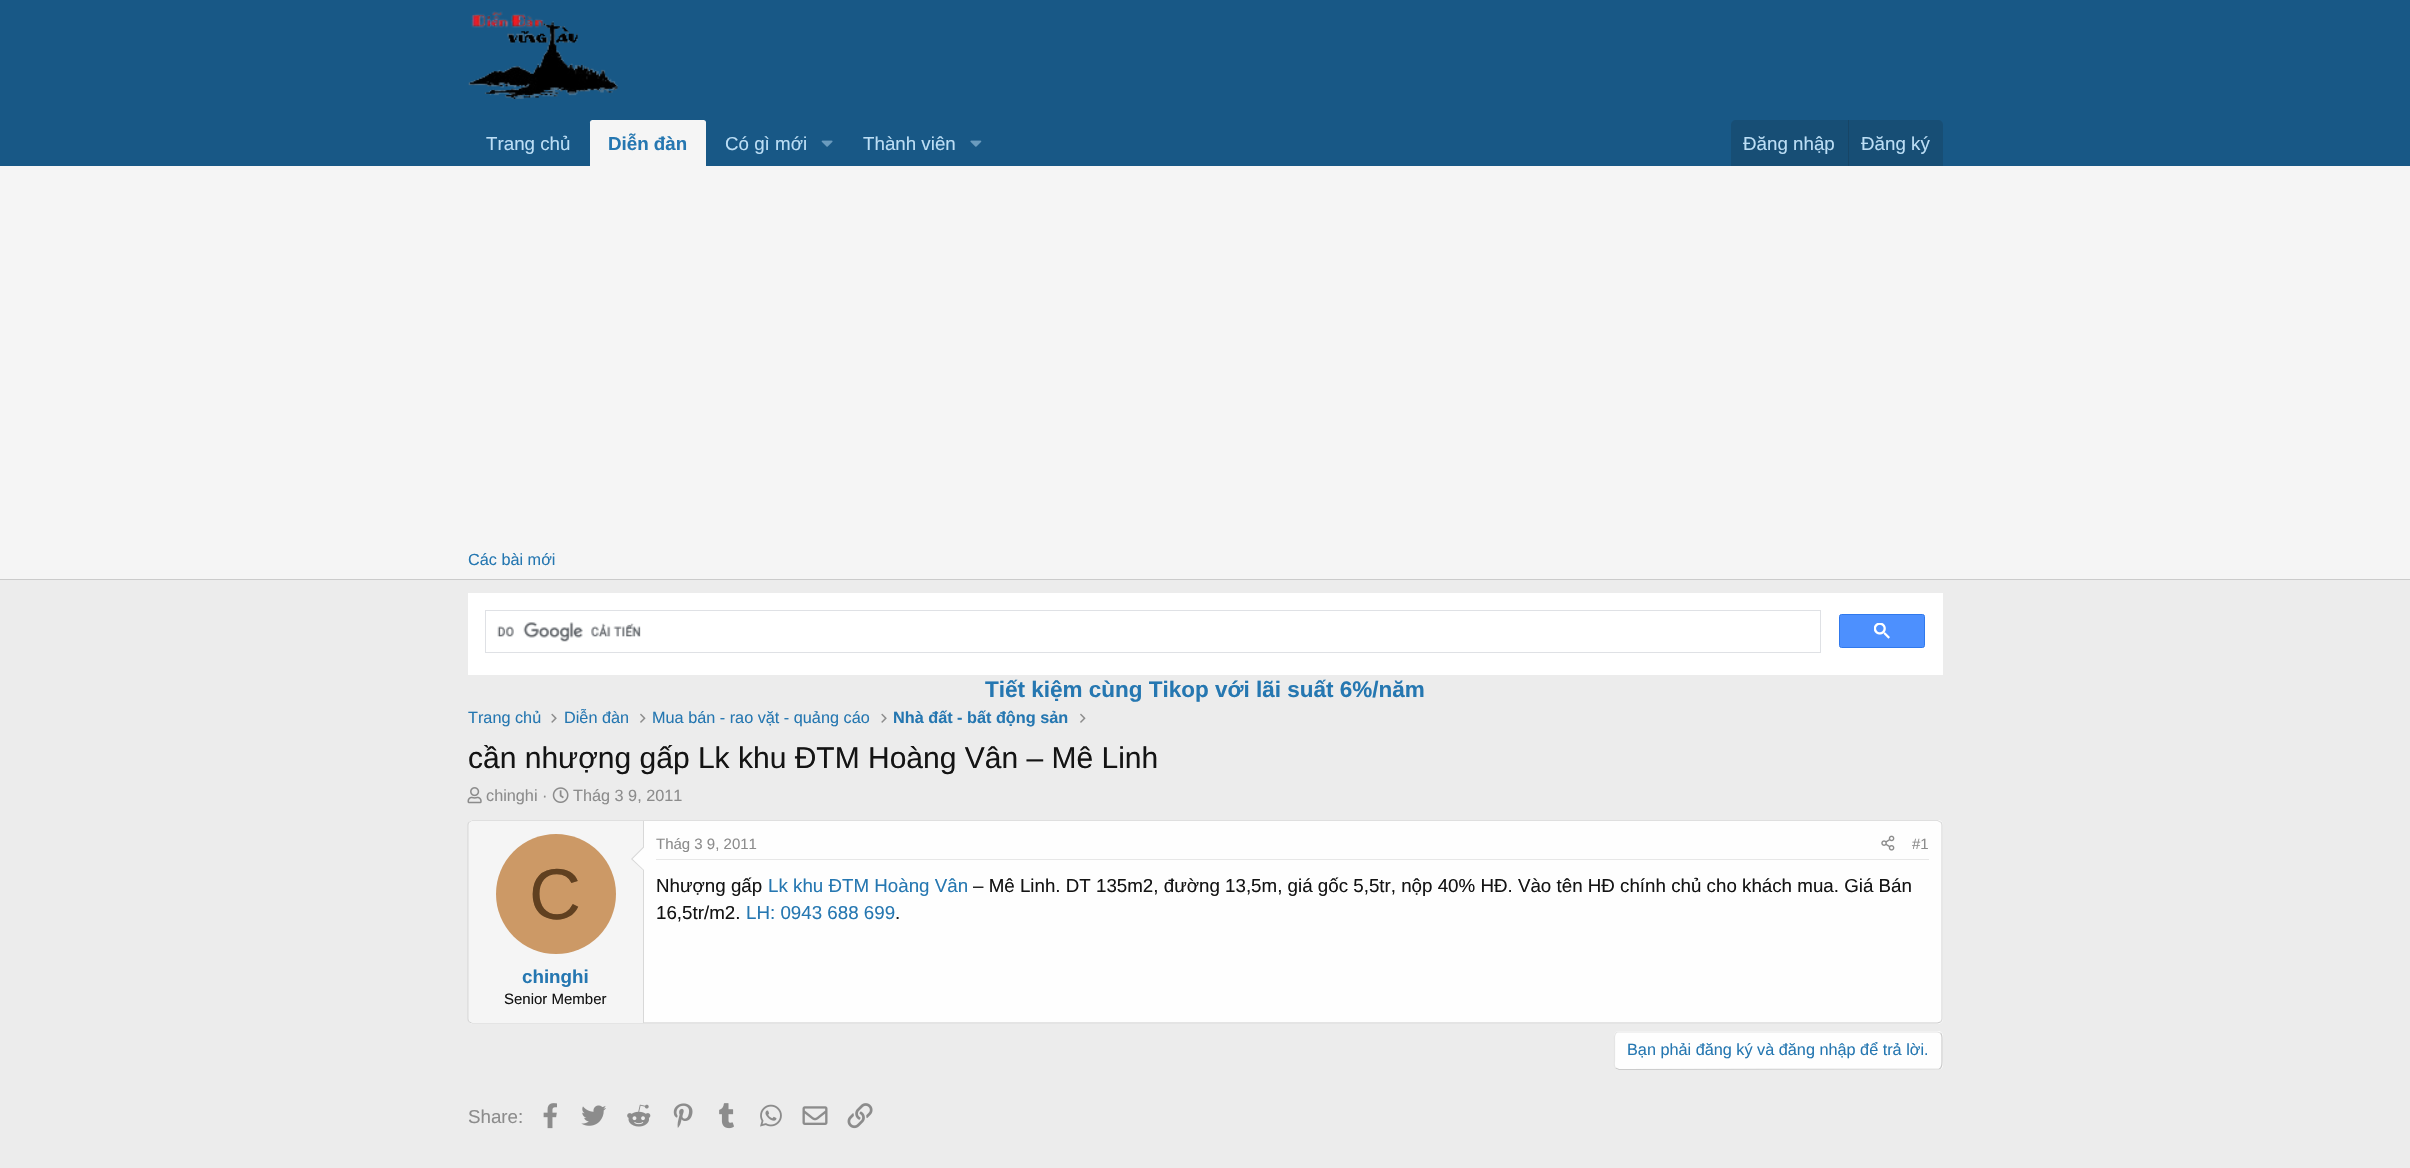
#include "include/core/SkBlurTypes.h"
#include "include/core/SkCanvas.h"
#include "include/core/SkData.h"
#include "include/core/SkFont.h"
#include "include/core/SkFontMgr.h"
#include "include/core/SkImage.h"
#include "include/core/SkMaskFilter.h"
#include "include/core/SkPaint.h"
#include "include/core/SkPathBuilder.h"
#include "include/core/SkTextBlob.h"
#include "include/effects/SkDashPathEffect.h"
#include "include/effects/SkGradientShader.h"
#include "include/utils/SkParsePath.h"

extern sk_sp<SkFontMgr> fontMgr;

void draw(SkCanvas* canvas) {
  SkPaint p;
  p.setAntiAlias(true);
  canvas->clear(SkColorSetRGB(236, 236, 236));
  p.setColor(SkColorSetRGB(24, 88, 134));
  canvas->drawRect(SkRect::MakeLTRB(0, 0, 2410, 166), p);
  canvas->drawImageRect(SkImages::DeferredFromEncodedData(SkData::MakeFromFileName("images/1.png")), SkRect::MakeLTRB(468, 11, 618, 99), SkSamplingOptions());
  p.setColor(SkColorSetRGB(245, 245, 245));
  canvas->drawPath(SkPathBuilder().moveTo(592.5f, 120).lineTo(703.5f, 120).cubicTo(705, 120, 706, 121, 706, 122.5f).lineTo(706, 166).lineTo(590, 166).lineTo(590, 122.5f).cubicTo(590, 121, 591, 120, 592.5f, 120).close().detach(), p);
  canvas->drawImageRect(SkImages::DeferredFromEncodedData(SkData::MakeFromFileName("images/2.png")), SkRect::MakeLTRB(821, 140, 833, 147), SkSamplingOptions());
  canvas->drawImageRect(SkImages::DeferredFromEncodedData(SkData::MakeFromFileName("images/3.png")), SkRect::MakeLTRB(970, 140, 982, 147), SkSamplingOptions());
  p.setColor(SkColorSetRGB(23, 78, 117));
  canvas->drawPath(SkPathBuilder().moveTo(1736, 120).lineTo(1938, 120).cubicTo(1941, 120, 1943, 122, 1943, 125).lineTo(1943, 166).lineTo(1731, 166).lineTo(1731, 125).cubicTo(1731, 122, 1733, 120, 1736, 120).close().detach(), p);
  p.setColor(SkColorSetRGB(23, 69, 102));
  canvas->drawRect(SkRect::MakeLTRB(1848, 120, 1849, 166), p);
  p.setColor(SkColorSetRGB(245, 245, 245));
  canvas->drawRect(SkRect::MakeLTRB(0, 166, 2410, 579), p);
  p.setColor(SkColorSetRGB(203, 203, 203));
  canvas->drawRect(SkRect::MakeLTRB(0, 579, 2410, 580), p);
  p.setColor(SK_ColorWHITE);
  canvas->drawRect(SkRect::MakeLTRB(468, 593, 1943, 675), p);
  p.setStyle(SkPaint::kStroke_Style);
  p.setStrokeWidth(1);
  p.setColor(SkColorSetRGB(223, 225, 229));
  canvas->drawRect(SkRect::MakeLTRB(485.5f, 610.5f, 1820.5f, 652.5f), p);
  canvas->drawImageRect(SkImages::DeferredFromEncodedData(SkData::MakeFromFileName("images/4.png")), SkRect::MakeLTRB(497, 622, 641, 642), SkSamplingOptions());
  p.setStyle(SkPaint::kFill_Style);
  p.setColor(SkColorSetRGB(77, 144, 254));
  canvas->drawRoundRect(SkRect::MakeLTRB(1839.5f, 614.5f, 1924.5f, 647.5f), 2, 2, p);
  p.setStyle(SkPaint::kStroke_Style);
  p.setColor(SkColorSetRGB(48, 121, 237));
  canvas->drawRoundRect(SkRect::MakeLTRB(1839.5f, 614.5f, 1924.5f, 647.5f), 2, 2, p);
  canvas->drawImageRect(SkImages::DeferredFromEncodedData(SkData::MakeFromFileName("images/5.png")), SkRect::MakeLTRB(1874, 623, 1890, 639), SkSamplingOptions());
  canvas->drawImageRect(SkImages::DeferredFromEncodedData(SkData::MakeFromFileName("images/6.png")), SkRect::MakeLTRB(551, 713, 557, 723), SkSamplingOptions());
  canvas->drawImageRect(SkImages::DeferredFromEncodedData(SkData::MakeFromFileName("images/7.png")), SkRect::MakeLTRB(640, 713, 646, 723), SkSamplingOptions());
  canvas->drawImageRect(SkImages::DeferredFromEncodedData(SkData::MakeFromFileName("images/6.png")), SkRect::MakeLTRB(881, 713, 887, 723), SkSamplingOptions());
  canvas->drawImageRect(SkImages::DeferredFromEncodedData(SkData::MakeFromFileName("images/7.png")), SkRect::MakeLTRB(1080, 713, 1086, 723), SkSamplingOptions());
  canvas->drawImageRect(SkImages::DeferredFromEncodedData(SkData::MakeFromFileName("images/8.png")), SkRect::MakeLTRB(467, 787, 482, 804), SkSamplingOptions());
  canvas->drawImageRect(SkImages::DeferredFromEncodedData(SkData::MakeFromFileName("images/9.png")), SkRect::MakeLTRB(552, 787, 569, 803), SkSamplingOptions());
  p.setStyle(SkPaint::kFill_Style);
  p.setColor(SkColorSetRGB(254, 254, 254));
  canvas->drawRoundRect(SkRect::MakeLTRB(468, 820, 1943, 1024), 5, 5, p);
  p.setStyle(SkPaint::kStroke_Style);
  p.setStrokeWidth(1.2f);
  p.setColor(SkColorSetRGB(223, 223, 223));
  canvas->drawPath(SkPathBuilder().moveTo(469.5f, 822).lineTo(472.5f, 820.5f).lineTo(1937.5f, 820.5f).lineTo(1940.5f, 822).detach(), p);
  p.setColor(SkColorSetRGB(216, 216, 216));
  canvas->drawPath(SkPathBuilder().moveTo(1940.5f, 822).cubicTo(1941.5f, 822.5f, 1942, 824, 1942, 825).lineTo(1942, 1019).cubicTo(1942, 1020, 1941.5f, 1021, 1940.5f, 1022).detach(), p);
  p.setColor(SkColorSetRGB(203, 203, 203));
  canvas->drawPath(SkPathBuilder().moveTo(1940.5f, 1022).lineTo(1937.5f, 1023).lineTo(472.5f, 1023).lineTo(469.5f, 1022).detach(), p);
  p.setColor(SkColorSetRGB(216, 216, 216));
  canvas->drawPath(SkPathBuilder().moveTo(469.5f, 1022).cubicTo(468.5f, 1021, 468, 1020, 468, 1019).lineTo(468, 825).cubicTo(468, 824, 468.5f, 822.5f, 469.5f, 822).detach(), p);
  p.setStyle(SkPaint::kFill_Style);
  p.setColor(SkColorSetRGB(245, 245, 245));
  canvas->drawPath(SkPathBuilder().moveTo(473, 821).lineTo(644, 821).lineTo(644, 1023).lineTo(473, 1023).cubicTo(471, 1023, 469, 1021, 469, 1019).lineTo(469, 825).cubicTo(469, 823, 471, 821, 473, 821).close().detach(), p);
  p.setColor(SkColorSetRGB(216, 216, 216));
  canvas->drawRect(SkRect::MakeLTRB(643, 821, 644, 1023), p);
  canvas->drawPath(SkPathBuilder().moveTo(644, 846).lineTo(644, 871).lineTo(631, 859).close().detach(), p);
  p.setColor(SkColorSetRGB(254, 254, 254));
  canvas->drawPath(SkPathBuilder().moveTo(644, 847.5f).lineTo(644, 870).lineTo(632.5f, 859).close().detach(), p);
  p.setColor(SkColorSetRGB(204, 153, 102));
  canvas->drawCircle(556, 894, 60, p);
  p.setColor(SkColorSetRGB(231, 231, 231));
  canvas->drawRect(SkRect::MakeLTRB(656, 859, 1929, 860), p);
  canvas->drawImageRect(SkImages::DeferredFromEncodedData(SkData::MakeFromFileName("images/10.png")), SkRect::MakeLTRB(1881, 835, 1895, 851), SkSamplingOptions());
  p.setColor(SkColorSetRGB(254, 254, 254));
  canvas->drawRoundRect(SkRect::MakeLTRB(1614, 1031, 1943, 1070), 5, 5, p);
  p.setStyle(SkPaint::kStroke_Style);
  p.setColor(SkColorSetRGB(203, 203, 203));
  canvas->drawPath(SkPathBuilder().moveTo(1940.5f, 1033).cubicTo(1942.5f, 1035, 1942, 1038.5f, 1942, 1041).lineTo(1942, 1060).cubicTo(1942, 1063.5f, 1942.5f, 1068, 1939, 1069).lineTo(1619, 1069.5f).lineTo(1615.5f, 1068).detach(), p);
  p.setColor(SkColorSetRGB(229, 229, 229));
  canvas->drawPath(SkPathBuilder().moveTo(1615.5f, 1068).cubicTo(1613.5f, 1066, 1614.5f, 1062.5f, 1614.5f, 1060).lineTo(1614.5f, 1041).cubicTo(1614.5f, 1038, 1613.5f, 1033.5f, 1617.5f, 1032).lineTo(1937.5f, 1032).lineTo(1940.5f, 1033).detach(), p);
  canvas->drawImageRect(SkImages::DeferredFromEncodedData(SkData::MakeFromFileName("images/11.png")), SkRect::MakeLTRB(543, 1103, 557, 1129), SkSamplingOptions());
  canvas->drawImageRect(SkImages::DeferredFromEncodedData(SkData::MakeFromFileName("images/12.png")), SkRect::MakeLTRB(581, 1105, 606, 1126), SkSamplingOptions());
  canvas->drawImageRect(SkImages::DeferredFromEncodedData(SkData::MakeFromFileName("images/13.png")), SkRect::MakeLTRB(627, 1104, 651, 1127), SkSamplingOptions());
  canvas->drawImageRect(SkImages::DeferredFromEncodedData(SkData::MakeFromFileName("images/14.png")), SkRect::MakeLTRB(673, 1103, 693, 1128), SkSamplingOptions());
  canvas->drawImageRect(SkImages::DeferredFromEncodedData(SkData::MakeFromFileName("images/15.png")), SkRect::MakeLTRB(719, 1103, 734, 1129), SkSamplingOptions());
  canvas->drawImageRect(SkImages::DeferredFromEncodedData(SkData::MakeFromFileName("images/16.png")), SkRect::MakeLTRB(760, 1104, 782, 1127), SkSamplingOptions());
  canvas->drawImageRect(SkImages::DeferredFromEncodedData(SkData::MakeFromFileName("images/17.png")), SkRect::MakeLTRB(802, 1106, 828, 1125), SkSamplingOptions());
  canvas->drawImageRect(SkImages::DeferredFromEncodedData(SkData::MakeFromFileName("images/18.png")), SkRect::MakeLTRB(847, 1103, 873, 1129), SkSamplingOptions());
  SkFont font1(fontMgr->matchFamilyStyle("Liberation Sans", SkFontStyle::Normal()), 18.75f);
  font1.setSubpixel(true);
  p.setStyle(SkPaint::kFill_Style);
  p.setColor(SkColorSetRGB(188, 222, 245));
  canvas->drawString("Trang chủ", 486, 150, font1, p);
  SkFont font2(fontMgr->matchFamilyStyle("Liberation Sans", SkFontStyle::Bold()), 18.75f);
  font2.setSubpixel(true);
  p.setColor(SkColorSetRGB(37, 119, 177));
  canvas->drawString("Diễn đàn", 608, 150, font2, p);
  p.setColor(SkColorSetRGB(188, 222, 245));
  canvas->drawString("Có gì mới", 725, 150, font1, p);
  canvas->drawString("Thành viên", 863, 150, font1, p);
  canvas->drawString("Đăng nhập", 1743, 150, font1, p);
  canvas->drawString("Đăng ký", 1861, 150, font1, p);
  SkFont font3(fontMgr->matchFamilyStyle("Liberation Sans", SkFontStyle::Normal()), 16.25f);
  font3.setSubpixel(true);
  p.setColor(SkColorSetRGB(37, 119, 177));
  canvas->drawString("Các bài mới", 468, 565, font3, p);
  SkFont font4(fontMgr->matchFamilyStyle("Liberation Sans", SkFontStyle::Bold()), 22.5f);
  font4.setSubpixel(true);
  canvas->drawString("Tiết kiệm cùng Tikop với lãi suất 6%/năm", 985, 697, font4, p);
  canvas->drawString("Trang chủ", 468, 723, font3, p);
  canvas->drawString("Diễn đàn", 564, 723, font3, p);
  canvas->drawString("Mua bán - rao vặt - quảng cáo", 652, 723, font3, p);
  SkFont font5(fontMgr->matchFamilyStyle("Liberation Sans", SkFontStyle::Bold()), 16.25f);
  font5.setSubpixel(true);
  canvas->drawString("Nhà đất - bất động sản", 893, 723, font5, p);
  SkFont font6(fontMgr->matchFamilyStyle("Liberation Sans", SkFontStyle::Normal()), 30);
  font6.setSubpixel(true);
  p.setColor(SkColorSetRGB(20, 20, 20));
  canvas->drawString("cần nhượng gấp Lk khu ĐTM Hoàng Vân – Mê Linh", 468, 768, font6, p);
  p.setColor(SkColorSetRGB(140, 140, 140));
  canvas->drawString("chinghi ·", 486, 801, font3, p);
  canvas->drawString("Thág 3 9, 2011", 573, 801, font3, p);
  SkFont font7(fontMgr->matchFamilyStyle("Liberation Sans", SkFontStyle::Normal()), 72);
  font7.setSubpixel(true);
  p.setColor(SkColorSetRGB(96, 64, 32));
  canvas->drawString("C", 529, 919, font7, p);
  p.setColor(SkColorSetRGB(37, 119, 177));
  canvas->drawString("chinghi", 522, 983, font2, p);
  SkFont font8(fontMgr->matchFamilyStyle("Liberation Sans", SkFontStyle::Normal()), 15);
  font8.setSubpixel(true);
  p.setColor(SkColorSetRGB(20, 20, 20));
  canvas->drawString("Senior Member", 504, 1004, font8, p);
  p.setColor(SkColorSetRGB(140, 140, 140));
  canvas->drawString("Thág 3 9, 2011", 656, 849, font8, p);
  canvas->drawString("#1", 1912, 849, font8, p);
  p.setColor(SkColorSetRGB(20, 20, 20));
  canvas->drawString("Nhượng gấp", 656, 892, font1, p);
  p.setColor(SkColorSetRGB(37, 119, 177));
  canvas->drawString("Lk khu ĐTM Hoàng Vân", 768, 892, font1, p);
  p.setColor(SkColorSetRGB(20, 20, 20));
  canvas->drawString("– Mê Linh. DT 135m2, đường 13,5m, giá gốc 5,5tr, nộp 40% HĐ. Vào tên HĐ chính chủ cho khách mua. Giá Bán", 973, 892, font1, p);
  canvas->drawString("16,5tr/m2.", 656, 919, font1, p);
  p.setColor(SkColorSetRGB(37, 119, 177));
  canvas->drawString("LH: 0943 688 699", 746, 919, font1, p);
  p.setColor(SkColorSetRGB(20, 20, 20));
  canvas->drawString(".", 895, 919, font1, p);
  p.setColor(SkColorSetRGB(37, 119, 177));
  canvas->drawString("Bạn phải đăng ký và đăng nhập để trả lời.", 1627, 1055, font3, p);
  p.setColor(SkColorSetRGB(140, 140, 140));
  canvas->drawString("Share:", 468, 1123, font1, p);
}
